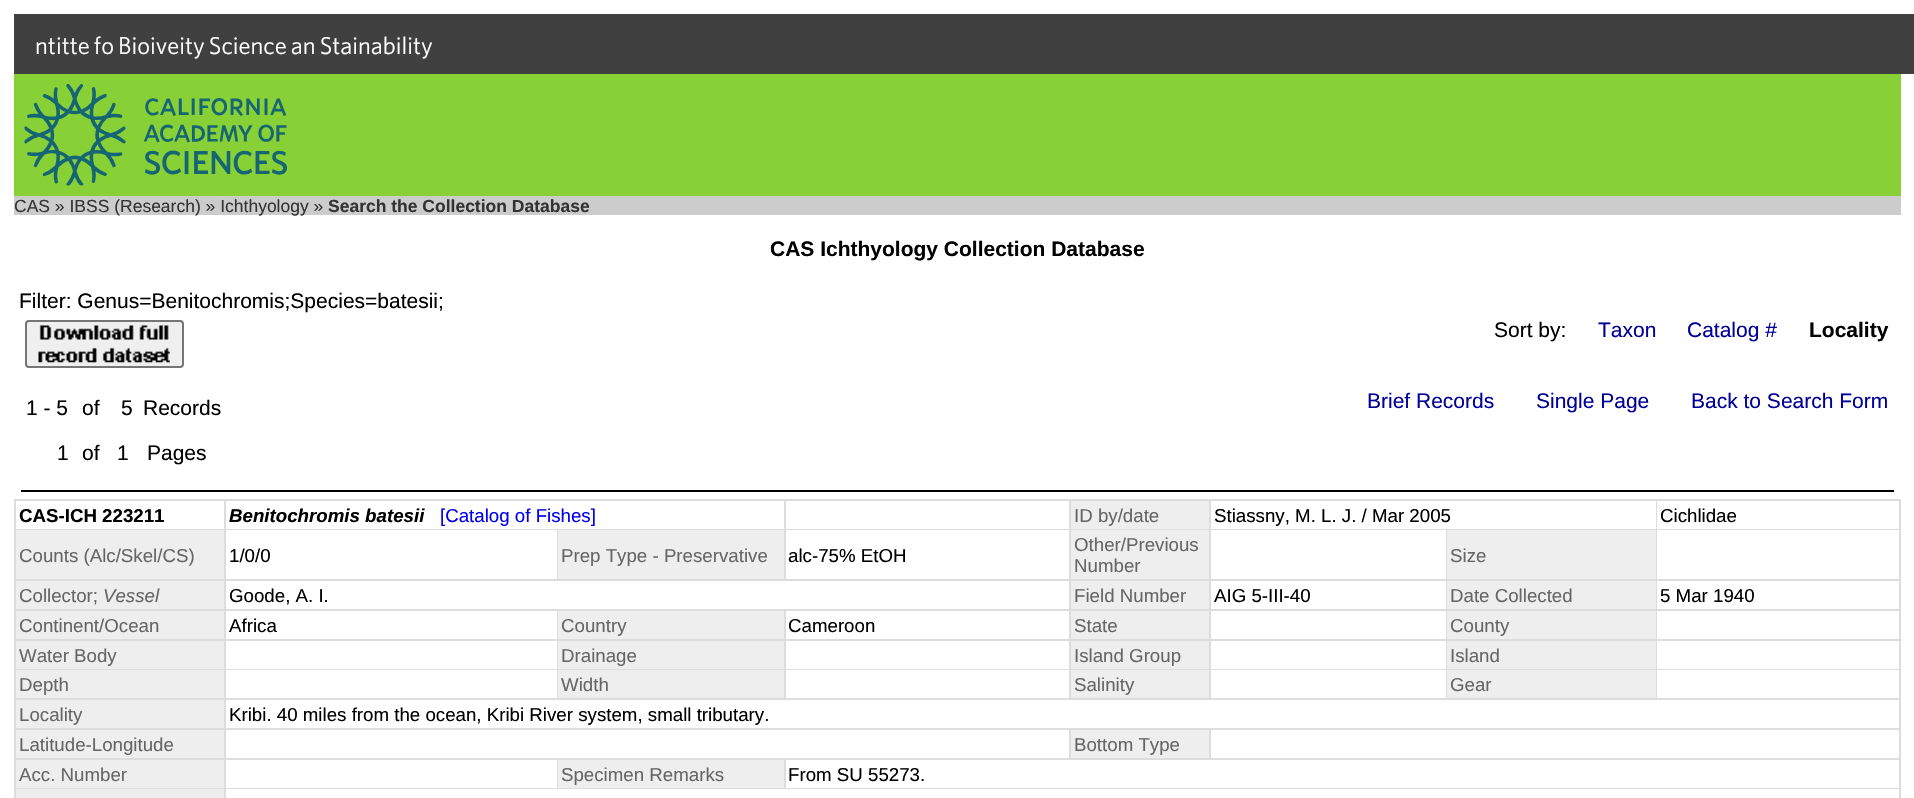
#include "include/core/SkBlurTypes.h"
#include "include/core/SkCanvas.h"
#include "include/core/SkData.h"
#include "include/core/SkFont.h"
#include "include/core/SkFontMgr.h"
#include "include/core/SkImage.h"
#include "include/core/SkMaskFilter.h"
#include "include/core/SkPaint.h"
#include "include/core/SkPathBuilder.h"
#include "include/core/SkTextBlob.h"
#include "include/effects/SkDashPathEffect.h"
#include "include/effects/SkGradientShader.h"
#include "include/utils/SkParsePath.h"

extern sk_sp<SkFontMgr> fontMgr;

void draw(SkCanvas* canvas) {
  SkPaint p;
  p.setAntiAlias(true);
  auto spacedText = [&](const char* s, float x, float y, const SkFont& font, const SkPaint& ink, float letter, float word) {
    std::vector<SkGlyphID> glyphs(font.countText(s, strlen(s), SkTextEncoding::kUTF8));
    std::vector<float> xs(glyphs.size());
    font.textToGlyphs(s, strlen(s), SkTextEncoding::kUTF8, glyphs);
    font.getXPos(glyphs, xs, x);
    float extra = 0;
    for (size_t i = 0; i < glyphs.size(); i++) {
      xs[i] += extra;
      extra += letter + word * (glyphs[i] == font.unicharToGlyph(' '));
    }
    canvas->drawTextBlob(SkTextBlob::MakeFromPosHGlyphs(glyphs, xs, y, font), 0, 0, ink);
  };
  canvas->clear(SK_ColorWHITE);
  p.setColor(SkColorSetRGB(64, 64, 64));
  canvas->drawRect(SkRect::MakeLTRB(14, 14, 1914, 74), p);
  p.setColor(SkColorSetRGB(135, 208, 54));
  canvas->drawRect(SkRect::MakeLTRB(14, 74, 1901, 196), p);
  canvas->drawImageRect(SkImages::DeferredFromEncodedData(SkData::MakeFromFileName("images/1.png")), SkRect::MakeLTRB(24, 84, 287, 186), SkSamplingOptions());
  p.setColor(SkColorSetRGB(204, 204, 204));
  canvas->drawRect(SkRect::MakeLTRB(14, 196, 1901, 215), p);
  p.setColor(SkColorSetRGB(239, 239, 239));
  canvas->drawRoundRect(SkRect::MakeLTRB(26, 321, 183, 367), 3, 3, p);
  p.setStyle(SkPaint::kStroke_Style);
  p.setStrokeWidth(2);
  p.setColor(SkColorSetRGB(118, 118, 118));
  canvas->drawRoundRect(SkRect::MakeLTRB(26, 321, 183, 367), 3, 3, p);
  canvas->drawImageRect(SkImages::DeferredFromEncodedData(SkData::MakeFromFileName("images/2.png")), SkRect::MakeLTRB(38, 325, 170, 363), SkSamplingOptions());
  p.setStyle(SkPaint::kFill_Style);
  p.setColor(SK_ColorBLACK);
  canvas->drawRect(SkRect::MakeLTRB(21, 490, 1894, 492), p);
  p.setColor(SkColorSetRGB(221, 221, 221));
  canvas->drawRect(SkRect::MakeLTRB(14, 499, 1901, 798), p);
  p.setColor(SK_ColorWHITE);
  canvas->drawRect(SkRect::MakeLTRB(16, 501, 224, 529), p);
  canvas->drawRect(SkRect::MakeLTRB(226, 501, 784, 529), p);
  canvas->drawRect(SkRect::MakeLTRB(786, 501, 1069, 529), p);
  p.setColor(SkColorSetRGB(238, 238, 238));
  canvas->drawRect(SkRect::MakeLTRB(1071, 501, 1209, 529), p);
  p.setColor(SK_ColorWHITE);
  canvas->drawRect(SkRect::MakeLTRB(1211, 501, 1656, 529), p);
  canvas->drawRect(SkRect::MakeLTRB(1657, 501, 1899, 529), p);
  p.setColor(SkColorSetRGB(238, 238, 238));
  canvas->drawRect(SkRect::MakeLTRB(16, 530, 224, 579), p);
  p.setColor(SK_ColorWHITE);
  canvas->drawRect(SkRect::MakeLTRB(226, 530, 557, 579), p);
  p.setColor(SkColorSetRGB(238, 238, 238));
  canvas->drawRect(SkRect::MakeLTRB(558, 530, 784, 579), p);
  p.setColor(SK_ColorWHITE);
  canvas->drawRect(SkRect::MakeLTRB(786, 530, 1069, 579), p);
  p.setColor(SkColorSetRGB(238, 238, 238));
  canvas->drawRect(SkRect::MakeLTRB(1071, 530, 1209, 579), p);
  p.setColor(SK_ColorWHITE);
  canvas->drawRect(SkRect::MakeLTRB(1211, 530, 1446, 579), p);
  p.setColor(SkColorSetRGB(238, 238, 238));
  canvas->drawRect(SkRect::MakeLTRB(1447, 530, 1656, 579), p);
  p.setColor(SK_ColorWHITE);
  canvas->drawRect(SkRect::MakeLTRB(1657, 530, 1899, 579), p);
  p.setColor(SkColorSetRGB(238, 238, 238));
  canvas->drawRect(SkRect::MakeLTRB(16, 581, 224, 609), p);
  p.setColor(SK_ColorWHITE);
  canvas->drawRect(SkRect::MakeLTRB(226, 581, 1069, 609), p);
  p.setColor(SkColorSetRGB(238, 238, 238));
  canvas->drawRect(SkRect::MakeLTRB(1071, 581, 1209, 609), p);
  p.setColor(SK_ColorWHITE);
  canvas->drawRect(SkRect::MakeLTRB(1211, 581, 1446, 609), p);
  p.setColor(SkColorSetRGB(238, 238, 238));
  canvas->drawRect(SkRect::MakeLTRB(1447, 581, 1656, 609), p);
  p.setColor(SK_ColorWHITE);
  canvas->drawRect(SkRect::MakeLTRB(1657, 581, 1899, 609), p);
  p.setColor(SkColorSetRGB(238, 238, 238));
  canvas->drawRect(SkRect::MakeLTRB(16, 611, 224, 639), p);
  p.setColor(SK_ColorWHITE);
  canvas->drawRect(SkRect::MakeLTRB(226, 611, 557, 639), p);
  p.setColor(SkColorSetRGB(238, 238, 238));
  canvas->drawRect(SkRect::MakeLTRB(558, 611, 784, 639), p);
  p.setColor(SK_ColorWHITE);
  canvas->drawRect(SkRect::MakeLTRB(786, 611, 1069, 639), p);
  p.setColor(SkColorSetRGB(238, 238, 238));
  canvas->drawRect(SkRect::MakeLTRB(1071, 611, 1209, 639), p);
  p.setColor(SK_ColorWHITE);
  canvas->drawRect(SkRect::MakeLTRB(1211, 611, 1446, 639), p);
  p.setColor(SkColorSetRGB(238, 238, 238));
  canvas->drawRect(SkRect::MakeLTRB(1447, 611, 1656, 639), p);
  p.setColor(SK_ColorWHITE);
  canvas->drawRect(SkRect::MakeLTRB(1657, 611, 1899, 639), p);
  p.setColor(SkColorSetRGB(238, 238, 238));
  canvas->drawRect(SkRect::MakeLTRB(16, 641, 224, 669), p);
  p.setColor(SK_ColorWHITE);
  canvas->drawRect(SkRect::MakeLTRB(226, 641, 557, 669), p);
  p.setColor(SkColorSetRGB(238, 238, 238));
  canvas->drawRect(SkRect::MakeLTRB(558, 641, 784, 669), p);
  p.setColor(SK_ColorWHITE);
  canvas->drawRect(SkRect::MakeLTRB(786, 641, 1069, 669), p);
  p.setColor(SkColorSetRGB(238, 238, 238));
  canvas->drawRect(SkRect::MakeLTRB(1071, 641, 1209, 669), p);
  p.setColor(SK_ColorWHITE);
  canvas->drawRect(SkRect::MakeLTRB(1211, 641, 1446, 669), p);
  p.setColor(SkColorSetRGB(238, 238, 238));
  canvas->drawRect(SkRect::MakeLTRB(1447, 641, 1656, 669), p);
  p.setColor(SK_ColorWHITE);
  canvas->drawRect(SkRect::MakeLTRB(1657, 641, 1899, 669), p);
  p.setColor(SkColorSetRGB(238, 238, 238));
  canvas->drawRect(SkRect::MakeLTRB(16, 670, 224, 698), p);
  p.setColor(SK_ColorWHITE);
  canvas->drawRect(SkRect::MakeLTRB(226, 670, 557, 698), p);
  p.setColor(SkColorSetRGB(238, 238, 238));
  canvas->drawRect(SkRect::MakeLTRB(558, 670, 784, 698), p);
  p.setColor(SK_ColorWHITE);
  canvas->drawRect(SkRect::MakeLTRB(786, 670, 1069, 698), p);
  p.setColor(SkColorSetRGB(238, 238, 238));
  canvas->drawRect(SkRect::MakeLTRB(1071, 670, 1209, 698), p);
  p.setColor(SK_ColorWHITE);
  canvas->drawRect(SkRect::MakeLTRB(1211, 670, 1446, 698), p);
  p.setColor(SkColorSetRGB(238, 238, 238));
  canvas->drawRect(SkRect::MakeLTRB(1447, 670, 1656, 698), p);
  p.setColor(SK_ColorWHITE);
  canvas->drawRect(SkRect::MakeLTRB(1657, 670, 1899, 698), p);
  p.setColor(SkColorSetRGB(238, 238, 238));
  canvas->drawRect(SkRect::MakeLTRB(16, 700, 224, 728), p);
  p.setColor(SK_ColorWHITE);
  canvas->drawRect(SkRect::MakeLTRB(226, 700, 1899, 728), p);
  p.setColor(SkColorSetRGB(238, 238, 238));
  canvas->drawRect(SkRect::MakeLTRB(16, 730, 224, 758), p);
  p.setColor(SK_ColorWHITE);
  canvas->drawRect(SkRect::MakeLTRB(226, 730, 1069, 758), p);
  p.setColor(SkColorSetRGB(238, 238, 238));
  canvas->drawRect(SkRect::MakeLTRB(1071, 730, 1209, 758), p);
  p.setColor(SK_ColorWHITE);
  canvas->drawRect(SkRect::MakeLTRB(1211, 730, 1899, 758), p);
  p.setColor(SkColorSetRGB(238, 238, 238));
  canvas->drawRect(SkRect::MakeLTRB(16, 760, 224, 788), p);
  p.setColor(SK_ColorWHITE);
  canvas->drawRect(SkRect::MakeLTRB(226, 760, 557, 788), p);
  p.setColor(SkColorSetRGB(238, 238, 238));
  canvas->drawRect(SkRect::MakeLTRB(558, 760, 784, 788), p);
  p.setColor(SK_ColorWHITE);
  canvas->drawRect(SkRect::MakeLTRB(786, 760, 1899, 788), p);
  p.setColor(SkColorSetRGB(238, 238, 238));
  canvas->drawRect(SkRect::MakeLTRB(16, 789, 224, 798), p);
  p.setColor(SK_ColorWHITE);
  canvas->drawRect(SkRect::MakeLTRB(226, 789, 1899, 798), p);
  SkFont font1(fontMgr->matchFamilyStyle("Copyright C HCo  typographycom", SkFontStyle(300, SkFontStyle::kNormal_Width, SkFontStyle::kUpright_Slant)), 24.5f);
  font1.setSubpixel(true);
  spacedText("Institute for Biodiversity Science and Sustainability", 35, 54, font1, p, 0, -1.5f);
  SkFont font2(fontMgr->matchFamilyStyle("Liberation Sans", SkFontStyle::Normal()), 17.5f);
  font2.setSubpixel(true);
  p.setColor(SkColorSetRGB(51, 51, 51));
  canvas->drawString("CAS » IBSS (Research) » Ichthyology »", 14, 212, font2, p);
  SkFont font3(fontMgr->matchFamilyStyle("Liberation Sans", SkFontStyle::Bold()), 17.5f);
  font3.setSubpixel(true);
  canvas->drawString("Search the Collection Database", 328, 212, font3, p);
  SkFont font4(fontMgr->matchFamilyStyle("Liberation Sans", SkFontStyle::Bold()), 21);
  font4.setSubpixel(true);
  p.setColor(SK_ColorBLACK);
  canvas->drawString("CAS Ichthyology Collection Database", 770, 256, font4, p);
  SkFont font5(fontMgr->matchFamilyStyle("Liberation Sans", SkFontStyle::Normal()), 21);
  font5.setSubpixel(true);
  canvas->drawString("Filter: Genus=Benitochromis;Species=batesii;", 19, 308, font5, p);
  canvas->drawString("Sort by:", 1494, 337, font5, p);
  p.setColor(SkColorSetRGB(0, 0, 153));
  canvas->drawString("Taxon", 1598, 337, font5, p);
  canvas->drawString("Catalog #", 1687, 337, font5, p);
  p.setColor(SK_ColorBLACK);
  canvas->drawString("Locality", 1809, 337, font4, p);
  canvas->drawString("1 - 5", 26, 415, font5, p);
  canvas->drawString("of", 82, 415, font5, p);
  canvas->drawString("5", 121, 415, font5, p);
  canvas->drawString("Records", 143, 415, font5, p);
  canvas->drawString("1", 57, 460, font5, p);
  canvas->drawString("of", 82, 460, font5, p);
  canvas->drawString("1", 117, 460, font5, p);
  canvas->drawString("Pages", 147, 460, font5, p);
  p.setColor(SkColorSetRGB(0, 0, 153));
  canvas->drawString("Brief Records", 1367, 408, font5, p);
  canvas->drawString("Single Page", 1536, 408, font5, p);
  canvas->drawString("Back to Search Form", 1691, 408, font5, p);
  SkFont font6(fontMgr->matchFamilyStyle("Liberation Sans", SkFontStyle::Bold()), 18.7f);
  font6.setSubpixel(true);
  p.setColor(SK_ColorBLACK);
  canvas->drawString("CAS-ICH 223211", 19, 522, font6, p);
  SkFont font7(fontMgr->matchFamilyStyle("Liberation Sans", SkFontStyle::BoldItalic()), 18.7f);
  font7.setSubpixel(true);
  canvas->drawString("Benitochromis batesii", 229, 522, font7, p);
  SkFont font8(fontMgr->matchFamilyStyle("Liberation Sans", SkFontStyle::Normal()), 18.7f);
  font8.setSubpixel(true);
  p.setColor(SkColorSetRGB(0, 0, 238));
  canvas->drawString("[Catalog of Fishes]", 440, 522, font8, p);
  p.setColor(SkColorSetRGB(102, 102, 102));
  canvas->drawString("ID by/date", 1074, 522, font8, p);
  p.setColor(SK_ColorBLACK);
  canvas->drawString("Stiassny, M. L. J. / Mar 2005", 1214, 522, font8, p);
  canvas->drawString("Cichlidae", 1660, 522, font8, p);
  p.setColor(SkColorSetRGB(102, 102, 102));
  canvas->drawString("Counts (Alc/Skel/CS)", 19, 562, font8, p);
  p.setColor(SK_ColorBLACK);
  canvas->drawString("1/0/0", 229, 562, font8, p);
  p.setColor(SkColorSetRGB(102, 102, 102));
  canvas->drawString("Prep Type - Preservative", 561, 562, font8, p);
  p.setColor(SK_ColorBLACK);
  canvas->drawString("alc-75% EtOH", 788, 562, font8, p);
  p.setColor(SkColorSetRGB(102, 102, 102));
  canvas->drawString("Other/Previous", 1074, 551, font8, p);
  canvas->drawString("Number", 1074, 572, font8, p);
  canvas->drawString("Size", 1450, 562, font8, p);
  canvas->drawString("Collector;", 19, 602, font8, p);
  SkFont font9(fontMgr->matchFamilyStyle("Liberation Sans", SkFontStyle::Italic()), 18.7f);
  font9.setSubpixel(true);
  canvas->drawString("Vessel", 103, 602, font9, p);
  p.setColor(SK_ColorBLACK);
  canvas->drawString("Goode, A. I.", 229, 602, font8, p);
  p.setColor(SkColorSetRGB(102, 102, 102));
  canvas->drawString("Field Number", 1074, 602, font8, p);
  p.setColor(SK_ColorBLACK);
  canvas->drawString("AIG 5-III-40", 1214, 602, font8, p);
  p.setColor(SkColorSetRGB(102, 102, 102));
  canvas->drawString("Date Collected", 1450, 602, font8, p);
  p.setColor(SK_ColorBLACK);
  canvas->drawString("5 Mar 1940", 1660, 602, font8, p);
  p.setColor(SkColorSetRGB(102, 102, 102));
  canvas->drawString("Continent/Ocean", 19, 632, font8, p);
  p.setColor(SK_ColorBLACK);
  canvas->drawString("Africa", 229, 632, font8, p);
  p.setColor(SkColorSetRGB(102, 102, 102));
  canvas->drawString("Country", 561, 632, font8, p);
  p.setColor(SK_ColorBLACK);
  canvas->drawString("Cameroon", 788, 632, font8, p);
  p.setColor(SkColorSetRGB(102, 102, 102));
  canvas->drawString("State", 1074, 632, font8, p);
  canvas->drawString("County", 1450, 632, font8, p);
  canvas->drawString("Water Body", 19, 662, font8, p);
  canvas->drawString("Drainage", 561, 662, font8, p);
  canvas->drawString("Island Group", 1074, 662, font8, p);
  canvas->drawString("Island", 1450, 662, font8, p);
  canvas->drawString("Depth", 19, 691, font8, p);
  canvas->drawString("Width", 561, 691, font8, p);
  canvas->drawString("Salinity", 1074, 691, font8, p);
  canvas->drawString("Gear", 1450, 691, font8, p);
  canvas->drawString("Locality", 19, 721, font8, p);
  p.setColor(SK_ColorBLACK);
  canvas->drawString("Kribi. 40 miles from the ocean, Kribi River system, small tributary.", 229, 721, font8, p);
  p.setColor(SkColorSetRGB(102, 102, 102));
  canvas->drawString("Latitude-Longitude", 19, 751, font8, p);
  canvas->drawString("Bottom Type", 1074, 751, font8, p);
  canvas->drawString("Acc. Number", 19, 781, font8, p);
  canvas->drawString("Specimen Remarks", 561, 781, font8, p);
  p.setColor(SK_ColorBLACK);
  canvas->drawString("From SU 55273.", 788, 781, font8, p);
}
